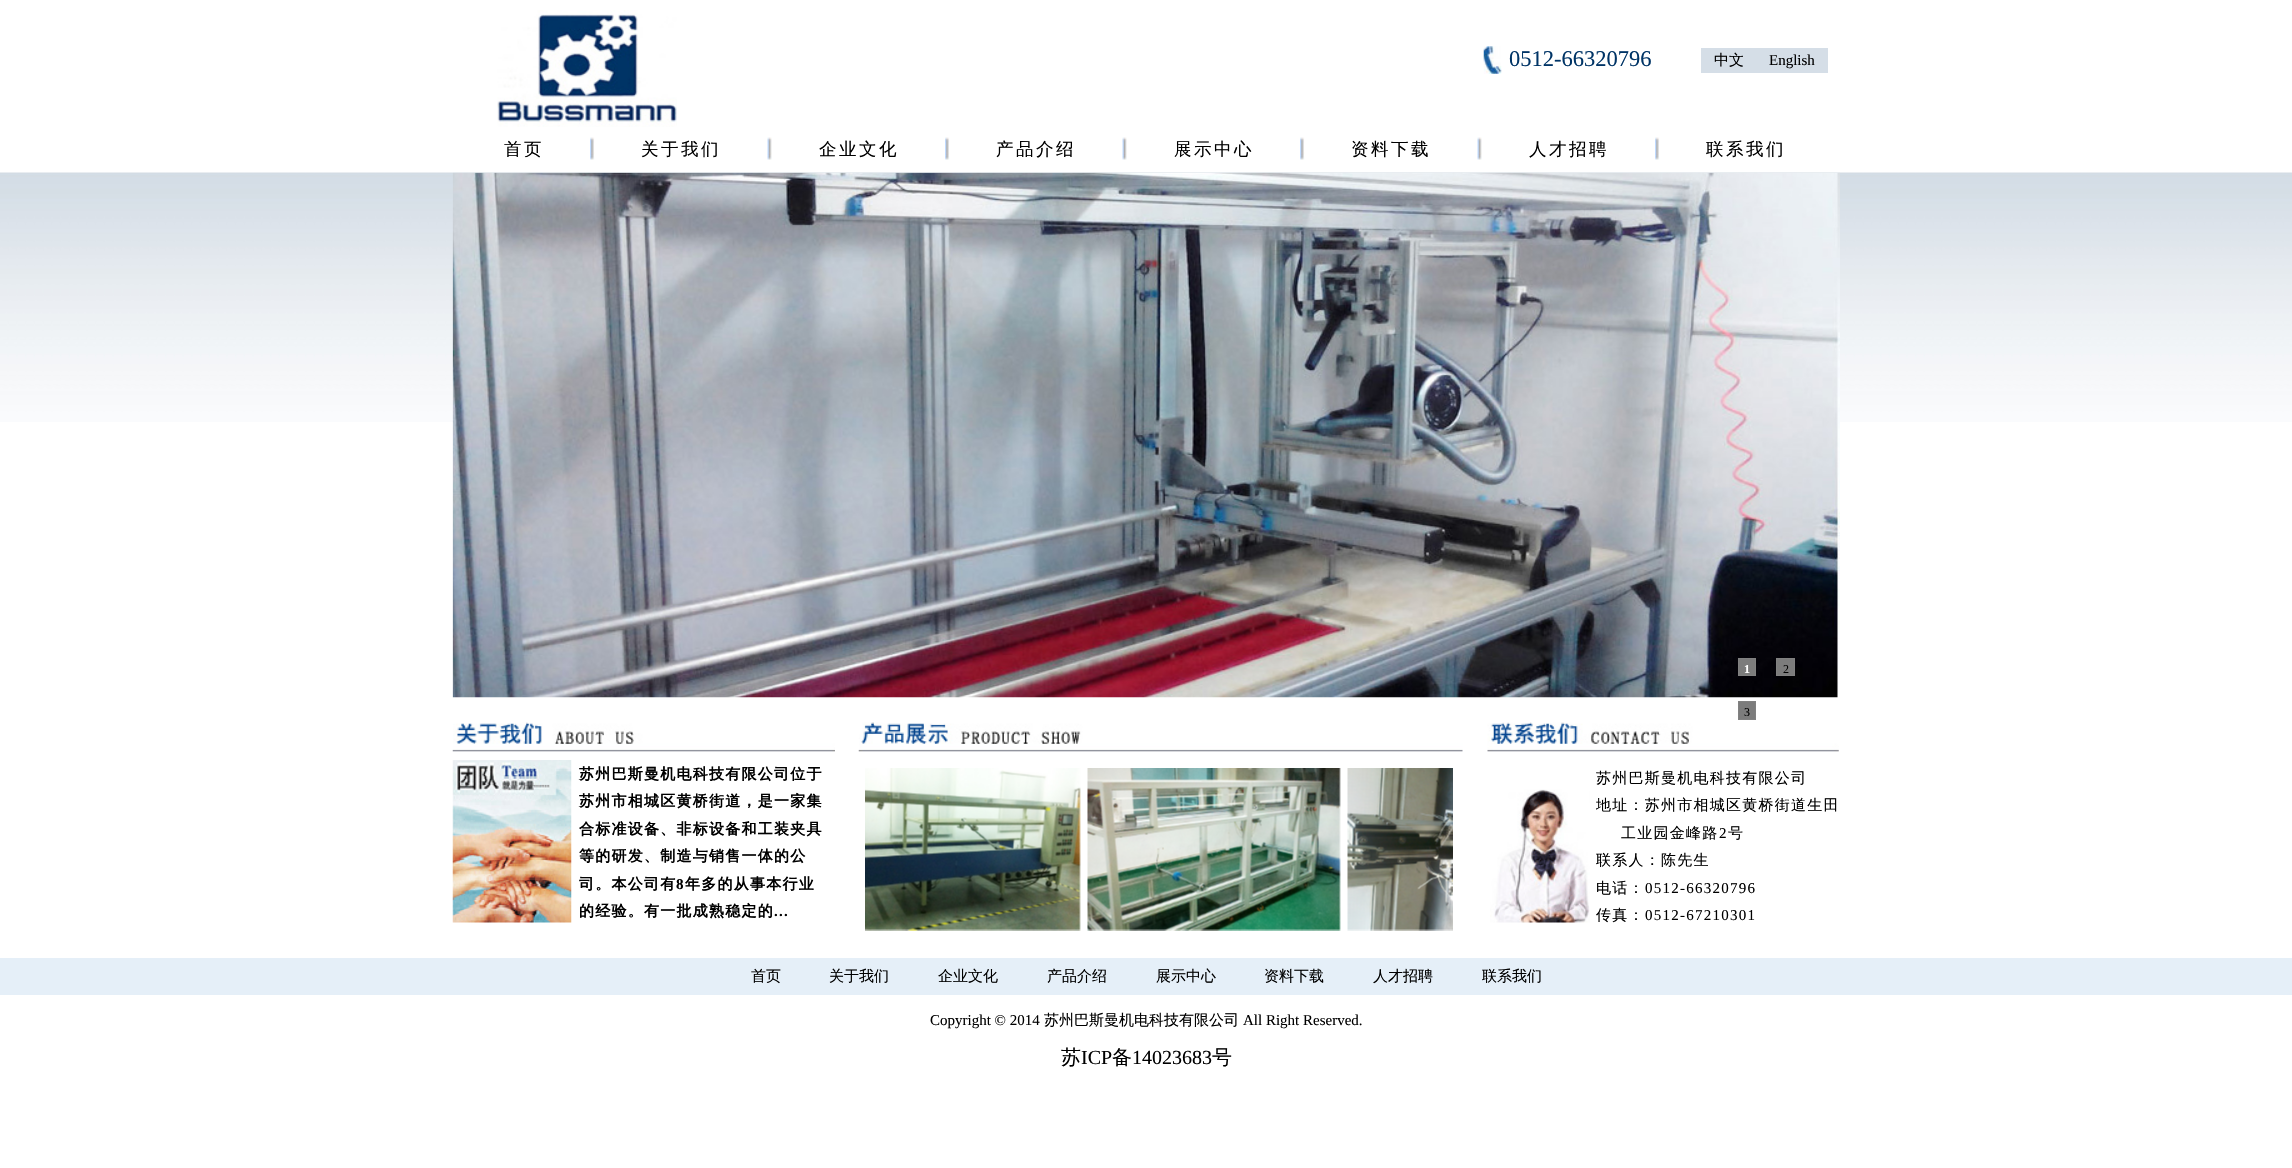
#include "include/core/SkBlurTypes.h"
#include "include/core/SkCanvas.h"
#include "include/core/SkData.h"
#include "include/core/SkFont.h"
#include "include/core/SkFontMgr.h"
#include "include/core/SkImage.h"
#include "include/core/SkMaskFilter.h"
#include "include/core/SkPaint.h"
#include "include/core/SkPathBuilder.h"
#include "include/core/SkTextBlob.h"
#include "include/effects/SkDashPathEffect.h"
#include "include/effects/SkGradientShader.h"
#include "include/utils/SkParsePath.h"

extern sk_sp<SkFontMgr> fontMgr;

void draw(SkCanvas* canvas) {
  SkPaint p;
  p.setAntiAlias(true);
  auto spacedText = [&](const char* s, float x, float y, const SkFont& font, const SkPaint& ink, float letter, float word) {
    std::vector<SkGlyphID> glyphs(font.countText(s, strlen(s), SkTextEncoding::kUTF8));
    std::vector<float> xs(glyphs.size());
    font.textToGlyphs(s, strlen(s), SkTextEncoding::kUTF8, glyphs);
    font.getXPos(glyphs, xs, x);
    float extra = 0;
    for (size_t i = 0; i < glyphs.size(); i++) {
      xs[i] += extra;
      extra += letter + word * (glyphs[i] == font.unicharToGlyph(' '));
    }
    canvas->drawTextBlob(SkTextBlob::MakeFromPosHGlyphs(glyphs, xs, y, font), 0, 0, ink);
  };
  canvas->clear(SK_ColorWHITE);
  canvas->drawImageRect(SkImages::DeferredFromEncodedData(SkData::MakeFromFileName("images/1.png")), SkRect::MakeLTRB(497, 10, 677, 127), SkSamplingOptions());
  canvas->drawImageRect(SkImages::DeferredFromEncodedData(SkData::MakeFromFileName("images/2.png")), SkRect::MakeLTRB(1483, 46, 1502, 74), SkSamplingOptions());
  p.setColor(SkColorSetRGB(213, 222, 231));
  canvas->drawRect(SkRect::MakeLTRB(1701, 48, 1828, 73), p);
  canvas->drawImageRect(SkImages::DeferredFromEncodedData(SkData::MakeFromFileName("images/3.png")), SkRect::MakeLTRB(590, 137, 595, 160), SkSamplingOptions());
  canvas->drawImageRect(SkImages::DeferredFromEncodedData(SkData::MakeFromFileName("images/4.png")), SkRect::MakeLTRB(767, 137, 772, 160), SkSamplingOptions());
  canvas->drawImageRect(SkImages::DeferredFromEncodedData(SkData::MakeFromFileName("images/5.png")), SkRect::MakeLTRB(945, 137, 950, 160), SkSamplingOptions());
  canvas->drawImageRect(SkImages::DeferredFromEncodedData(SkData::MakeFromFileName("images/4.png")), SkRect::MakeLTRB(1122, 137, 1127, 160), SkSamplingOptions());
  canvas->drawImageRect(SkImages::DeferredFromEncodedData(SkData::MakeFromFileName("images/5.png")), SkRect::MakeLTRB(1300, 137, 1305, 160), SkSamplingOptions());
  canvas->drawImageRect(SkImages::DeferredFromEncodedData(SkData::MakeFromFileName("images/4.png")), SkRect::MakeLTRB(1477, 137, 1482, 160), SkSamplingOptions());
  canvas->drawImageRect(SkImages::DeferredFromEncodedData(SkData::MakeFromFileName("images/3.png")), SkRect::MakeLTRB(1655, 137, 1660, 160), SkSamplingOptions());
  canvas->drawImageRect(SkImages::DeferredFromEncodedData(SkData::MakeFromFileName("images/6.png")), SkRect::MakeLTRB(0, 172, 2292, 422), SkSamplingOptions());
  canvas->drawImageRect(SkImages::DeferredFromEncodedData(SkData::MakeFromFileName("images/7.png")), SkRect::MakeLTRB(452, 172, 1840, 698), SkSamplingOptions());
  p.setColor(SkColorSetRGB(124, 124, 124));
  canvas->drawRect(SkRect::MakeLTRB(1738.5f, 658.5f, 1755.5f, 675.5f), p);
  p.setStyle(SkPaint::kStroke_Style);
  p.setStrokeWidth(1);
  p.setColor(SkColorSetRGB(129, 129, 129));
  canvas->drawRect(SkRect::MakeLTRB(1738.5f, 658.5f, 1755.5f, 675.5f), p);
  p.setStyle(SkPaint::kFill_Style);
  p.setColor(SkColorSetRGB(124, 124, 124));
  canvas->drawRect(SkRect::MakeLTRB(1776.5f, 658.5f, 1794.5f, 675.5f), p);
  p.setStyle(SkPaint::kStroke_Style);
  p.setColor(SkColorSetRGB(129, 129, 129));
  canvas->drawRect(SkRect::MakeLTRB(1776.5f, 658.5f, 1794.5f, 675.5f), p);
  p.setStyle(SkPaint::kFill_Style);
  p.setColor(SkColorSetRGB(124, 124, 124));
  canvas->drawRect(SkRect::MakeLTRB(1738.5f, 701.5f, 1755.5f, 719.5f), p);
  p.setStyle(SkPaint::kStroke_Style);
  p.setColor(SkColorSetRGB(129, 129, 129));
  canvas->drawRect(SkRect::MakeLTRB(1738.5f, 701.5f, 1755.5f, 719.5f), p);
  canvas->drawImageRect(SkImages::DeferredFromEncodedData(SkData::MakeFromFileName("images/8.png")), SkRect::MakeLTRB(452, 722, 835, 752), SkSamplingOptions());
  canvas->drawImageRect(SkImages::DeferredFromEncodedData(SkData::MakeFromFileName("images/9.png")), SkRect::MakeLTRB(452, 760, 572, 923), SkSamplingOptions());
  canvas->drawImageRect(SkImages::DeferredFromEncodedData(SkData::MakeFromFileName("images/10.png")), SkRect::MakeLTRB(858, 722, 1463, 752), SkSamplingOptions());
  canvas->drawImageRect(SkImages::DeferredFromEncodedData(SkData::MakeFromFileName("images/11.png")), SkRect::MakeLTRB(865, 768, 1081, 931), SkSamplingOptions());
  canvas->drawImageRect(SkImages::DeferredFromEncodedData(SkData::MakeFromFileName("images/12.png")), SkRect::MakeLTRB(1087, 768, 1341, 931), SkSamplingOptions());
  canvas->drawImageRect(SkImages::DeferredFromEncodedData(SkData::MakeFromFileName("images/13.png")), SkRect::MakeLTRB(1347, 768, 1453, 931), SkSamplingOptions());
  canvas->drawImageRect(SkImages::DeferredFromEncodedData(SkData::MakeFromFileName("images/14.png")), SkRect::MakeLTRB(1487, 722, 1839, 752), SkSamplingOptions());
  canvas->drawImageRect(SkImages::DeferredFromEncodedData(SkData::MakeFromFileName("images/15.png")), SkRect::MakeLTRB(1490, 789, 1590, 923), SkSamplingOptions());
  p.setStyle(SkPaint::kFill_Style);
  p.setColor(SkColorSetRGB(229, 239, 248));
  canvas->drawRect(SkRect::MakeLTRB(0, 958, 2292, 995), p);
  SkFont font1(fontMgr->matchFamilyStyle("Liberation Serif", SkFontStyle::Normal()), 22.5f);
  font1.setSubpixel(true);
  p.setColor(SkColorSetRGB(0, 52, 102));
  canvas->drawString("0512-66320796", 1509, 66, font1, p);
  SkFont font2(fontMgr->matchFamilyStyle("WenQuanYi Zen Hei", SkFontStyle(500, SkFontStyle::kNormal_Width, SkFontStyle::kUpright_Slant)), 15);
  font2.setSubpixel(true);
  p.setColor(SK_ColorBLACK);
  canvas->drawString("中文", 1714, 65, font2, p);
  SkFont font3(fontMgr->matchFamilyStyle("Liberation Serif", SkFontStyle::Normal()), 15);
  font3.setSubpixel(true);
  canvas->drawString("English", 1769, 65, font3, p);
  SkFont font4(fontMgr->matchFamilyStyle("WenQuanYi Zen Hei", SkFontStyle(500, SkFontStyle::kNormal_Width, SkFontStyle::kUpright_Slant)), 17.5f);
  font4.setSubpixel(true);
  spacedText("首页", 504, 155, font4, p, 2.5f, 0);
  spacedText("关于我们", 641, 155, font4, p, 2.5f, 0);
  spacedText("企业文化", 819, 155, font4, p, 2.5f, 0);
  spacedText("产品介绍", 996, 155, font4, p, 2.5f, 0);
  spacedText("展示中心", 1174, 155, font4, p, 2.5f, 0);
  spacedText("资料下载", 1351, 155, font4, p, 2.5f, 0);
  spacedText("人才招聘", 1529, 155, font4, p, 2.5f, 0);
  spacedText("联系我们", 1706, 155, font4, p, 2.5f, 0);
  SkFont font5(fontMgr->matchFamilyStyle("Liberation Serif", SkFontStyle::Bold()), 12);
  font5.setSubpixel(true);
  p.setColor(SK_ColorWHITE);
  canvas->drawString("1", 1744, 673, font5, p);
  SkFont font6(fontMgr->matchFamilyStyle("Liberation Serif", SkFontStyle::Normal()), 12);
  font6.setSubpixel(true);
  p.setColor(SK_ColorBLACK);
  canvas->drawString("2", 1783, 673, font6, p);
  canvas->drawString("3", 1744, 716, font6, p);
  SkFont font7(fontMgr->matchFamilyStyle("WenQuanYi Zen Hei", SkFontStyle::Bold()), 15);
  font7.setSubpixel(true);
  spacedText("苏州巴斯曼机电科技有限公司位于", 579, 779, font7, p, 1.25f, 0);
  spacedText("苏州市相城区黄桥街道，是一家集", 579, 806, font7, p, 1.25f, 0);
  spacedText("合标准设备、非标设备和工装夹具", 579, 834, font7, p, 1.25f, 0);
  spacedText("等的研发、制造与销售一体的公", 579, 861, font7, p, 1.25f, 0);
  spacedText("司。本公司有", 579, 889, font7, p, 1.25f, 0);
  SkFont font8(fontMgr->matchFamilyStyle("Liberation Serif", SkFontStyle::Bold()), 15);
  font8.setSubpixel(true);
  spacedText("8", 676, 889, font8, p, 1.25f, 0);
  spacedText("年多的从事本行业", 685, 889, font7, p, 1.25f, 0);
  spacedText("的经验。有一批成熟稳定的", 579, 916, font7, p, 1.25f, 0);
  spacedText("...", 774, 916, font8, p, 1.25f, 0);
  spacedText("苏州巴斯曼机电科技有限公司", 1596, 783, font2, p, 1.25f, 0);
  spacedText("地址：苏州市相城区黄桥街道生田", 1596, 810, font2, p, 1.25f, 0);
  spacedText("工业园金峰路", 1621, 838, font2, p, 1.25f, 0);
  spacedText("2", 1719, 838, font3, p, 1.25f, 0);
  spacedText("号", 1728, 838, font2, p, 1.25f, 0);
  spacedText("联系人：陈先生", 1596, 865, font2, p, 1.25f, 0);
  spacedText("电话：", 1596, 893, font2, p, 1.25f, 0);
  spacedText("0512-66320796", 1645, 893, font3, p, 1.25f, 0);
  spacedText("传真：", 1596, 920, font2, p, 1.25f, 0);
  spacedText("0512-67210301", 1645, 920, font3, p, 1.25f, 0);
  canvas->drawString("首页", 751, 981, font2, p);
  canvas->drawString("关于我们", 829, 981, font2, p);
  canvas->drawString("企业文化", 938, 981, font2, p);
  canvas->drawString("产品介绍", 1047, 981, font2, p);
  canvas->drawString("展示中心", 1156, 981, font2, p);
  canvas->drawString("资料下载", 1264, 981, font2, p);
  canvas->drawString("人才招聘", 1373, 981, font2, p);
  canvas->drawString("联系我们", 1482, 981, font2, p);
  canvas->drawString("Copyright © 2014", 930, 1025, font3, p);
  canvas->drawString("苏州巴斯曼机电科技有限公司", 1044, 1025, font2, p);
  canvas->drawString("All Right Reserved.", 1243, 1025, font3, p);
  SkFont font9(fontMgr->matchFamilyStyle("WenQuanYi Zen Hei", SkFontStyle(500, SkFontStyle::kNormal_Width, SkFontStyle::kUpright_Slant)), 20);
  font9.setSubpixel(true);
  canvas->drawString("苏", 1061, 1064, font9, p);
  SkFont font10(fontMgr->matchFamilyStyle("Liberation Serif", SkFontStyle::Normal()), 20);
  font10.setSubpixel(true);
  canvas->drawString("ICP", 1081, 1064, font10, p);
  canvas->drawString("备", 1112, 1064, font9, p);
  canvas->drawString("14023683", 1132, 1064, font10, p);
  canvas->drawString("号", 1212, 1064, font9, p);
}
